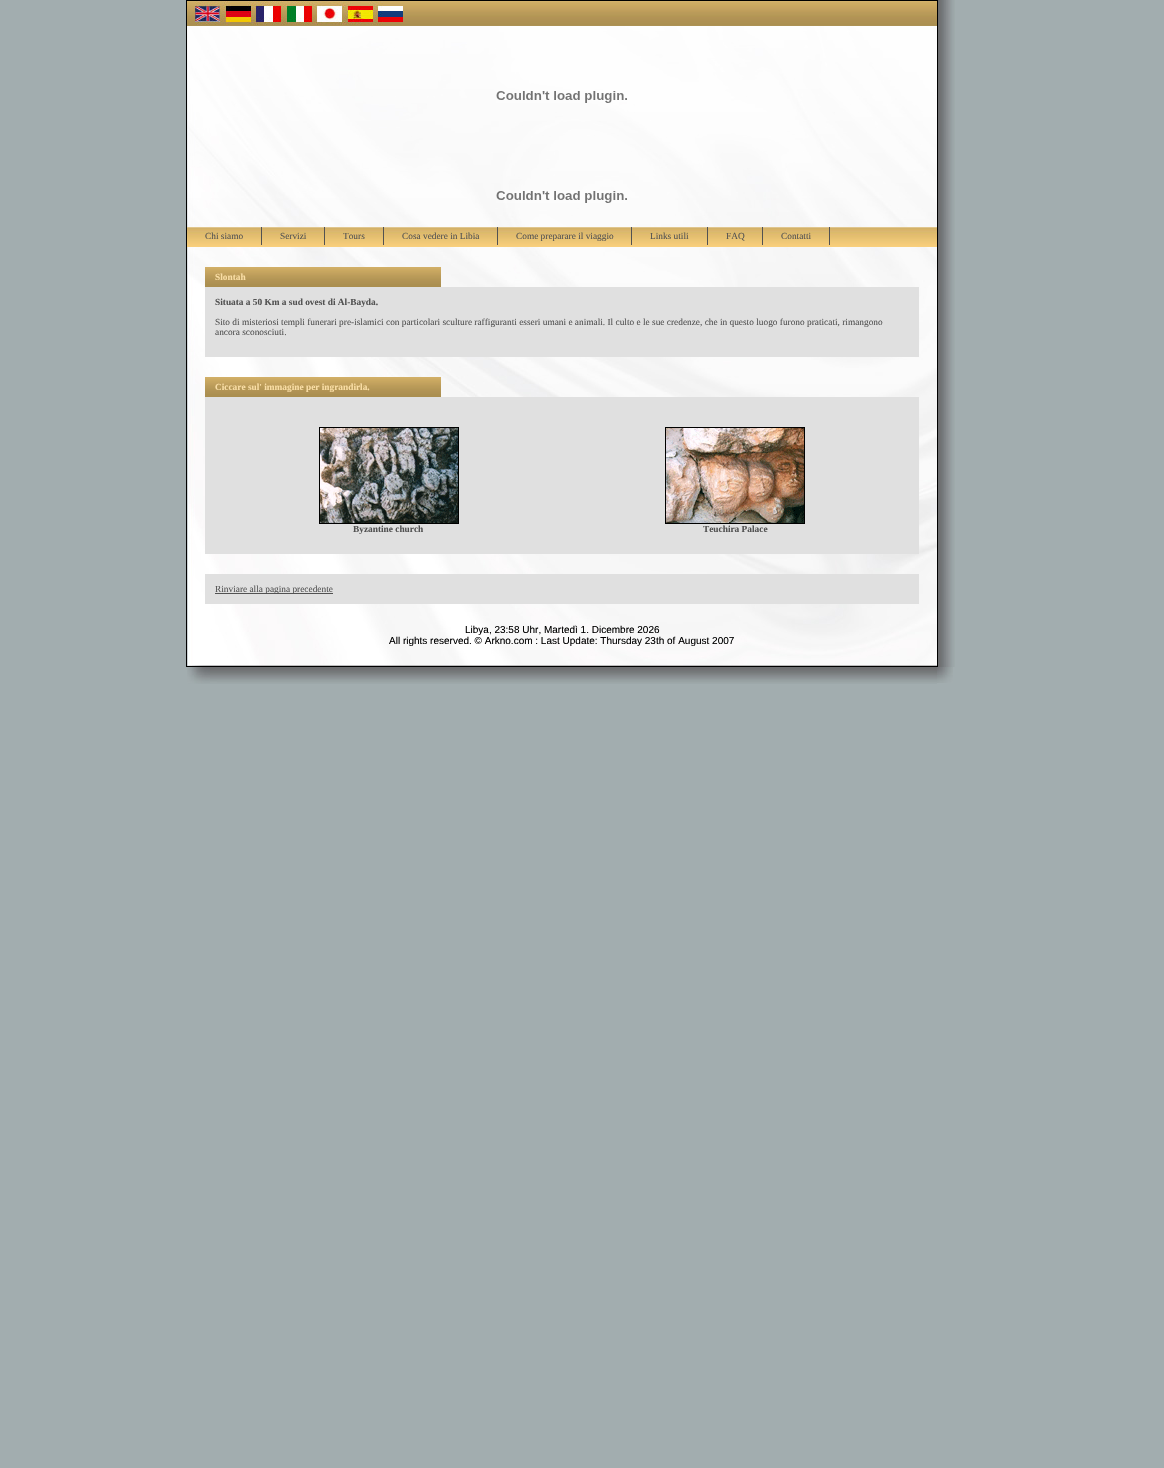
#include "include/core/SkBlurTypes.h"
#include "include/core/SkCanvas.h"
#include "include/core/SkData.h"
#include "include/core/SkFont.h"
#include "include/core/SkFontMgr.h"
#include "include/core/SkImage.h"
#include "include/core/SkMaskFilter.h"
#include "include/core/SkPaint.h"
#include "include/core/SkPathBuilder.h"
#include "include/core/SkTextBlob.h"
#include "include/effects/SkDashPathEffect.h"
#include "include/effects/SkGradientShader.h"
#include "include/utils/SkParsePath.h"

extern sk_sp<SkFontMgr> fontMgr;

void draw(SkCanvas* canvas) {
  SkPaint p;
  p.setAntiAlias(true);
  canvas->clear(SkColorSetRGB(162, 173, 175));
  canvas->drawImageRect(SkImages::DeferredFromEncodedData(SkData::MakeFromFileName("images/1.png")), SkRect::MakeLTRB(187, 26, 937, 666), SkSamplingOptions());
  p.setStyle(SkPaint::kStroke_Style);
  p.setStrokeWidth(1);
  p.setColor(SK_ColorBLACK);
  canvas->drawRect(SkRect::MakeLTRB(186.5f, 0.5f, 937.5f, 666.5f), p);
  canvas->drawImageRect(SkImages::DeferredFromEncodedData(SkData::MakeFromFileName("images/2.png")), SkRect::MakeLTRB(187, 1, 195, 26), SkSamplingOptions());
  canvas->drawImageRect(SkImages::DeferredFromEncodedData(SkData::MakeFromFileName("images/3.png")), SkRect::MakeLTRB(195, 1, 223, 26), SkSamplingOptions());
  canvas->drawImageRect(SkImages::DeferredFromEncodedData(SkData::MakeFromFileName("images/4.png")), SkRect::MakeLTRB(223, 1, 253, 26), SkSamplingOptions());
  canvas->drawImageRect(SkImages::DeferredFromEncodedData(SkData::MakeFromFileName("images/5.png")), SkRect::MakeLTRB(253, 1, 284, 26), SkSamplingOptions());
  canvas->drawImageRect(SkImages::DeferredFromEncodedData(SkData::MakeFromFileName("images/6.png")), SkRect::MakeLTRB(284, 1, 314, 26), SkSamplingOptions());
  canvas->drawImageRect(SkImages::DeferredFromEncodedData(SkData::MakeFromFileName("images/7.png")), SkRect::MakeLTRB(314, 1, 345, 26), SkSamplingOptions());
  canvas->drawImageRect(SkImages::DeferredFromEncodedData(SkData::MakeFromFileName("images/8.png")), SkRect::MakeLTRB(345, 1, 375, 26), SkSamplingOptions());
  canvas->drawImageRect(SkImages::DeferredFromEncodedData(SkData::MakeFromFileName("images/9.png")), SkRect::MakeLTRB(375, 1, 403, 26), SkSamplingOptions());
  canvas->drawImageRect(SkImages::DeferredFromEncodedData(SkData::MakeFromFileName("images/10.png")), SkRect::MakeLTRB(403, 1, 937, 26), SkSamplingOptions());
  canvas->drawImageRect(SkImages::DeferredFromEncodedData(SkData::MakeFromFileName("images/11.png")), SkRect::MakeLTRB(496, 91, 627, 103), SkSamplingOptions());
  canvas->drawImageRect(SkImages::DeferredFromEncodedData(SkData::MakeFromFileName("images/12.png")), SkRect::MakeLTRB(496, 191, 627, 203), SkSamplingOptions());
  canvas->drawImageRect(SkImages::DeferredFromEncodedData(SkData::MakeFromFileName("images/13.png")), SkRect::MakeLTRB(187, 227, 937, 247), SkSamplingOptions());
  p.setStyle(SkPaint::kFill_Style);
  p.setColor(SkColorSetRGB(82, 82, 82));
  canvas->drawRect(SkRect::MakeLTRB(261, 227, 262, 245), p);
  canvas->drawRect(SkRect::MakeLTRB(324, 227, 325, 245), p);
  canvas->drawRect(SkRect::MakeLTRB(383, 227, 384, 245), p);
  canvas->drawRect(SkRect::MakeLTRB(497, 227, 498, 245), p);
  canvas->drawRect(SkRect::MakeLTRB(631, 227, 632, 245), p);
  canvas->drawRect(SkRect::MakeLTRB(707, 227, 708, 245), p);
  canvas->drawRect(SkRect::MakeLTRB(762, 227, 763, 245), p);
  canvas->drawRect(SkRect::MakeLTRB(829, 227, 830, 245), p);
  canvas->drawImageRect(SkImages::DeferredFromEncodedData(SkData::MakeFromFileName("images/14.png")), SkRect::MakeLTRB(205, 267, 441, 287), SkSamplingOptions());
  p.setColor(SkColorSetRGB(224, 224, 224));
  canvas->drawRect(SkRect::MakeLTRB(205, 287, 919, 357), p);
  canvas->drawImageRect(SkImages::DeferredFromEncodedData(SkData::MakeFromFileName("images/14.png")), SkRect::MakeLTRB(205, 377, 441, 397), SkSamplingOptions());
  canvas->drawRect(SkRect::MakeLTRB(205, 397, 919, 554), p);
  canvas->drawImageRect(SkImages::DeferredFromEncodedData(SkData::MakeFromFileName("images/15.png")), SkRect::MakeLTRB(319, 427, 459, 524), SkSamplingOptions());
  canvas->drawImageRect(SkImages::DeferredFromEncodedData(SkData::MakeFromFileName("images/16.png")), SkRect::MakeLTRB(665, 427, 805, 524), SkSamplingOptions());
  canvas->drawRect(SkRect::MakeLTRB(205, 574, 919, 604), p);
  p.setColor(SkColorSetRGB(82, 82, 82));
  canvas->drawRect(SkRect::MakeLTRB(215, 593, 333, 594), p);
  canvas->drawImageRect(SkImages::DeferredFromEncodedData(SkData::MakeFromFileName("images/17.png")), SkRect::MakeLTRB(938, 0, 955, 667), SkSamplingOptions());
  canvas->drawImageRect(SkImages::DeferredFromEncodedData(SkData::MakeFromFileName("images/18.png")), SkRect::MakeLTRB(187, 667, 217, 684), SkSamplingOptions());
  canvas->drawImageRect(SkImages::DeferredFromEncodedData(SkData::MakeFromFileName("images/19.png")), SkRect::MakeLTRB(217, 667, 937, 684), SkSamplingOptions());
  canvas->drawImageRect(SkImages::DeferredFromEncodedData(SkData::MakeFromFileName("images/20.png")), SkRect::MakeLTRB(937, 667, 953, 683), SkSamplingOptions());
  SkFont font1(fontMgr->matchFamilyStyle("Liberation Serif", SkFontStyle::Normal()), 9.33f);
  font1.setSubpixel(true);
  canvas->drawString("Chi siamo", 205, 239, font1, p);
  canvas->drawString("Servizi", 280, 239, font1, p);
  canvas->drawString("Tours", 343, 239, font1, p);
  canvas->drawString("Cosa vedere in Libia", 402, 239, font1, p);
  canvas->drawString("Come preparare il viaggio", 516, 239, font1, p);
  canvas->drawString("Links utili", 650, 239, font1, p);
  canvas->drawString("FAQ", 726, 239, font1, p);
  canvas->drawString("Contatti", 781, 239, font1, p);
  SkFont font2(fontMgr->matchFamilyStyle("Liberation Serif", SkFontStyle::Bold()), 9.33f);
  font2.setSubpixel(true);
  p.setColor(SkColorSetRGB(250, 222, 165));
  canvas->drawString("Slontah", 215, 280, font2, p);
  p.setColor(SkColorSetRGB(82, 82, 82));
  canvas->drawString("Situata a 50 Km a sud ovest di Al-Bayda.", 215, 305, font2, p);
  canvas->drawString("Sito di misteriosi templi funerari pre-islamici con particolari sculture raffiguranti esseri umani e animali. Il culto e le sue credenze, che in questo luogo furono praticati, rimangono", 215, 325, font1, p);
  canvas->drawString("ancora sconosciuti.", 215, 335, font1, p);
  p.setColor(SkColorSetRGB(250, 222, 165));
  canvas->drawString("Ciccare sul' immagine per ingrandirla.", 215, 390, font2, p);
  p.setColor(SkColorSetRGB(82, 82, 82));
  canvas->drawString("Byzantine church", 353, 532, font2, p);
  canvas->drawString("Teuchira Palace", 703, 532, font2, p);
  canvas->drawString("Rinviare alla pagina precedente", 215, 592, font1, p);
  SkFont font3(fontMgr->matchFamilyStyle("Liberation Sans", SkFontStyle::Normal()), 10);
  font3.setSubpixel(true);
  p.setColor(SK_ColorBLACK);
  canvas->drawString("Libya, 23:58 Uhr, Martedì 1. Dicembre 2026", 465, 633, font3, p);
  canvas->drawString("All rights reserved. © Arkno.com : Last Update: Thursday 23th of August 2007", 389, 644, font3, p);
}
